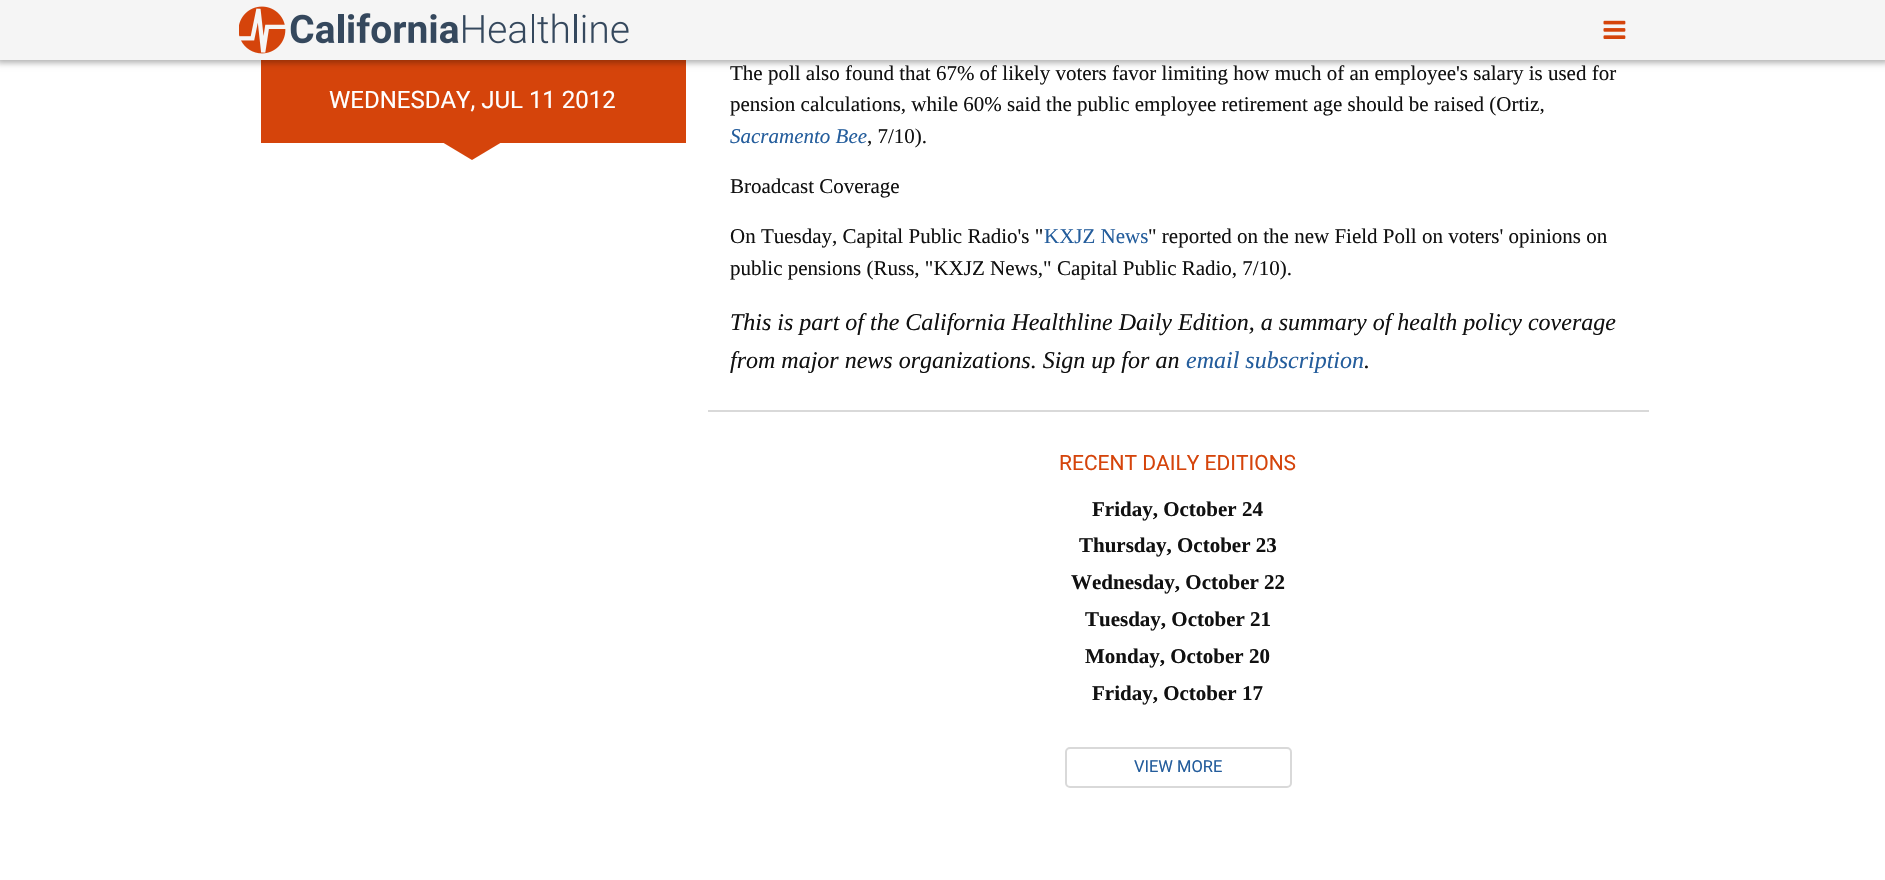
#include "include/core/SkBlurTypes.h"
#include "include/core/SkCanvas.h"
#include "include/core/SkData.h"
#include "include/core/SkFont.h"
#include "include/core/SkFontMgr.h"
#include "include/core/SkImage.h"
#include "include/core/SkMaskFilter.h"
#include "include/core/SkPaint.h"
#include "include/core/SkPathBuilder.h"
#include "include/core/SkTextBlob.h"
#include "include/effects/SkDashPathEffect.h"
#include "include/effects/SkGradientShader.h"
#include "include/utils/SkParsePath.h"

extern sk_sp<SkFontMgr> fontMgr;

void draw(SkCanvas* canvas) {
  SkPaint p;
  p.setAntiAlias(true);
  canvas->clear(SK_ColorWHITE);
  p.setColor(SkColorSetRGB(213, 68, 11));
  canvas->drawRect(SkRect::MakeLTRB(261, 60, 686, 143), p);
  p.setColor(SkColorSetARGB(77, 0, 0, 0));
  p.setMaskFilter(SkMaskFilter::MakeBlur(kNormal_SkBlurStyle, 3));
  canvas->drawRect(SkRect::MakeLTRB(-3, -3, 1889, 63), p);
  p.setMaskFilter(nullptr);
  p.setColor(SkColorSetRGB(245, 245, 245));
  canvas->drawRect(SkRect::MakeLTRB(0, 0, 1885, 60), p);
  canvas->drawImageRect(SkImages::DeferredFromEncodedData(SkData::MakeFromFileName("images/1.png")), SkRect::MakeLTRB(239, 6, 629, 54), SkSamplingOptions());
  canvas->drawImageRect(SkImages::DeferredFromEncodedData(SkData::MakeFromFileName("images/2.png")), SkRect::MakeLTRB(1603, 20, 1626, 39), SkSamplingOptions());
  p.setColor(SkColorSetRGB(213, 68, 11));
  canvas->drawPath(SkPathBuilder().moveTo(442, 142).lineTo(502, 142).lineTo(472, 160).close().detach(), p);
  p.setColor(SkColorSetRGB(217, 217, 217));
  canvas->drawRect(SkRect::MakeLTRB(708, 410, 1649, 412), p);
  p.setStyle(SkPaint::kStroke_Style);
  p.setStrokeWidth(2);
  canvas->drawRoundRect(SkRect::MakeLTRB(1066, 748, 1291, 787), 4, 4, p);
  SkFont font1(fontMgr->matchFamilyStyle("Roboto", SkFontStyle::Normal()), 24);
  font1.setSubpixel(true);
  p.setStyle(SkPaint::kFill_Style);
  p.setColor(SK_ColorWHITE);
  canvas->drawString("WEDNESDAY, JUL 11 2012", 329, 108, font1, p);
  SkFont font2(fontMgr->matchFamilyStyle("Liberation Serif", SkFontStyle::Normal()), 21);
  font2.setSubpixel(true);
  p.setColor(SkColorSetRGB(17, 17, 17));
  canvas->drawString("The poll also found that 67% of likely voters favor limiting how much of an employee's salary is used for", 730, 80, font2, p);
  canvas->drawString("pension calculations, while 60% said the public employee retirement age should be raised (Ortiz,", 730, 111, font2, p);
  SkFont font3(fontMgr->matchFamilyStyle("Liberation Serif", SkFontStyle::Italic()), 21);
  font3.setSubpixel(true);
  p.setColor(SkColorSetRGB(36, 93, 156));
  canvas->drawString("Sacramento Bee", 730, 143, font3, p);
  p.setColor(SkColorSetRGB(17, 17, 17));
  canvas->drawString(", 7/10).", 867, 143, font2, p);
  canvas->drawString("Broadcast Coverage", 730, 193, font2, p);
  canvas->drawString("On Tuesday, Capital Public Radio's \"", 730, 243, font2, p);
  p.setColor(SkColorSetRGB(36, 93, 156));
  canvas->drawString("KXJZ News", 1044, 243, font2, p);
  p.setColor(SkColorSetRGB(17, 17, 17));
  canvas->drawString("\" reported on the new Field Poll on voters' opinions on", 1148, 243, font2, p);
  canvas->drawString("public pensions (Russ, \"KXJZ News,\" Capital Public Radio, 7/10).", 730, 275, font2, p);
  SkFont font4(fontMgr->matchFamilyStyle("Liberation Serif", SkFontStyle::Italic()), 24);
  font4.setSubpixel(true);
  canvas->drawString("This is part of the California Healthline Daily Edition, a summary of health policy coverage", 730, 330, font4, p);
  canvas->drawString("from major news organizations. Sign up for an", 730, 368, font4, p);
  p.setColor(SkColorSetRGB(36, 93, 156));
  canvas->drawString("email subscription", 1186, 368, font4, p);
  p.setColor(SkColorSetRGB(17, 17, 17));
  canvas->drawString(".", 1364, 368, font4, p);
  SkFont font5(fontMgr->matchFamilyStyle("Roboto", SkFontStyle::Normal()), 21);
  font5.setSubpixel(true);
  p.setColor(SkColorSetRGB(213, 68, 11));
  canvas->drawString("RECENT DAILY EDITIONS", 1059, 470, font5, p);
  SkFont font6(fontMgr->matchFamilyStyle("Liberation Serif", SkFontStyle::Bold()), 21);
  font6.setSubpixel(true);
  p.setColor(SkColorSetRGB(17, 17, 17));
  canvas->drawString("Friday, October 24", 1092, 516, font6, p);
  canvas->drawString("Thursday, October 23", 1079, 552, font6, p);
  canvas->drawString("Wednesday, October 22", 1071, 589, font6, p);
  canvas->drawString("Tuesday, October 21", 1085, 626, font6, p);
  canvas->drawString("Monday, October 20", 1085, 663, font6, p);
  canvas->drawString("Friday, October 17", 1092, 700, font6, p);
  SkFont font7(fontMgr->matchFamilyStyle("Roboto", SkFontStyle::Normal()), 16.5f);
  font7.setSubpixel(true);
  p.setColor(SkColorSetRGB(36, 93, 156));
  canvas->drawString("VIEW MORE", 1134, 772, font7, p);
}
